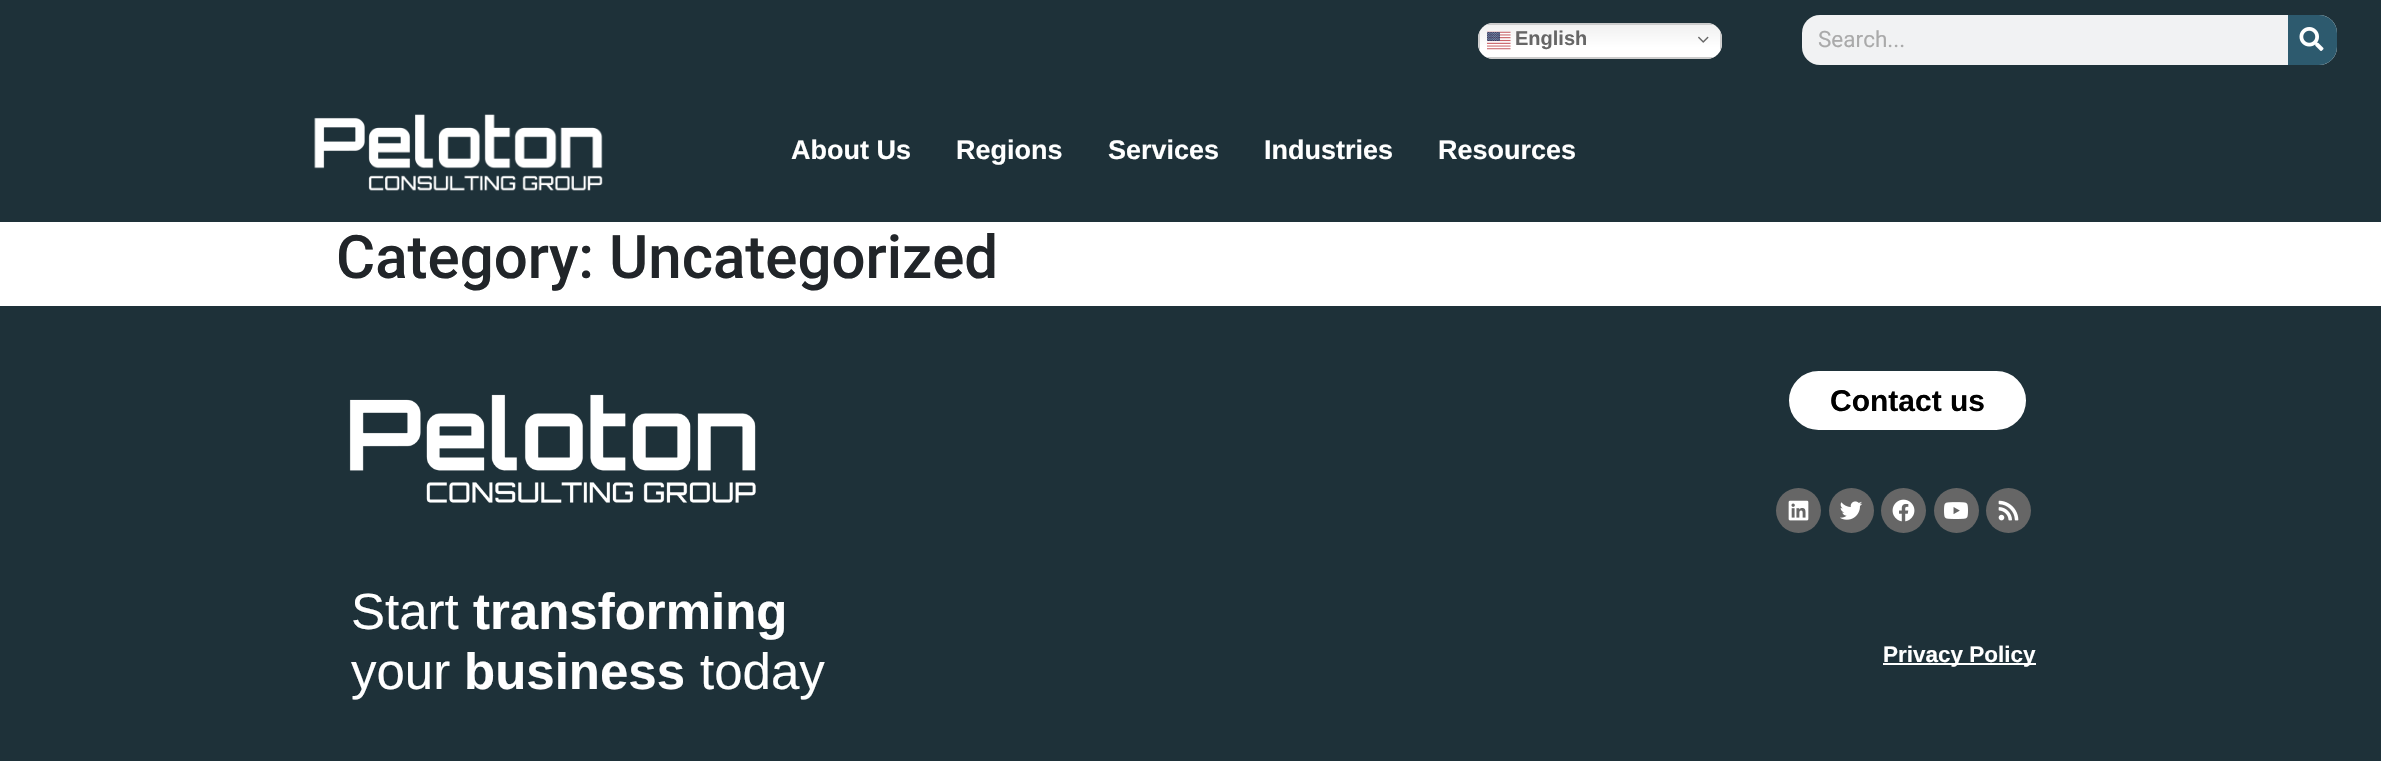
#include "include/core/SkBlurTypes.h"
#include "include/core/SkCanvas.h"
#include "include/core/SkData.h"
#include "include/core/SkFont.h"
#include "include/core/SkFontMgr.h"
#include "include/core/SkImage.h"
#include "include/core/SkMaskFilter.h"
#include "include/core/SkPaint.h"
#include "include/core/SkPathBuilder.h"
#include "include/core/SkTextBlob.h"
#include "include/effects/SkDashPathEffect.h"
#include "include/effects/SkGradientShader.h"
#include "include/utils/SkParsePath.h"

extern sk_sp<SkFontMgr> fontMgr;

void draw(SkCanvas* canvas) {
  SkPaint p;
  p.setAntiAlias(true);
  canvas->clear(SK_ColorWHITE);
  p.setColor(SkColorSetRGB(30, 49, 57));
  canvas->drawRect(SkRect::MakeLTRB(0, 0, 2381, 222), p);
  {
    const SkColor colors[] = {SkColorSetRGB(239, 239, 239), SK_ColorWHITE};
    const float stops[] = {0, 0.7f};
    const SkPoint ends[] = {{1600, 22}, {1600, 59}};
    p.setShader(SkGradientShader::MakeLinear(ends, colors, stops, 2, SkTileMode::kClamp));
    p.setAlpha(255);
  }
  canvas->drawRoundRect(SkRect::MakeLTRB(1478, 23, 1722, 59), 15, 15, p);
  p.setShader(nullptr);
  p.setColor(SkColorSetRGB(204, 204, 204));
  canvas->drawPath(SkPathBuilder(SkPathFillType::kEvenOdd).moveTo(1478, 38).cubicTo(1478, 43, 1478, 47, 1480, 51).lineTo(1480, 31).cubicTo(1479, 33, 1478, 35, 1478, 38).close().moveTo(1493, 23).cubicTo(1490, 23, 1488, 24, 1486, 25).lineTo(1714, 25).cubicTo(1712, 24, 1710, 23, 1707, 23).close().moveTo(1722, 38).cubicTo(1722, 35, 1721, 33, 1720, 31).lineTo(1720, 51).cubicTo(1722, 47, 1722, 43, 1722, 38).close().moveTo(1707, 59).cubicTo(1710, 59, 1712, 58, 1714, 57).lineTo(1486, 57).cubicTo(1488, 58, 1490, 59, 1493, 59).close().detach(), p);
  canvas->drawImageRect(SkImages::DeferredFromEncodedData(SkData::MakeFromFileName("images/1.png")), SkRect::MakeLTRB(1487, 31, 1511, 50), SkSamplingOptions());
  canvas->drawImageRect(SkImages::DeferredFromEncodedData(SkData::MakeFromFileName("images/2.png")), SkRect::MakeLTRB(1698, 36, 1709, 43), SkSamplingOptions());
  p.setColor(SkColorSetRGB(241, 242, 243));
  canvas->drawRoundRect(SkRect::MakeLTRB(1802, 15, 2337, 65), 18, 18, p);
  p.setColor(SkColorSetRGB(45, 90, 110));
  canvas->drawPath(SkPathBuilder().moveTo(2288, 15).lineTo(2319, 15).cubicTo(2329, 15, 2337, 23, 2337, 33).lineTo(2337, 47).cubicTo(2337, 57, 2329, 65, 2319, 65).lineTo(2288, 65).close().detach(), p);
  canvas->drawImageRect(SkImages::DeferredFromEncodedData(SkData::MakeFromFileName("images/3.png")), SkRect::MakeLTRB(2299, 27, 2324, 51), SkSamplingOptions());
  canvas->drawImageRect(SkImages::DeferredFromEncodedData(SkData::MakeFromFileName("images/4.png")), SkRect::MakeLTRB(314, 114, 603, 191), SkSamplingOptions());
  p.setColor(SkColorSetRGB(30, 49, 57));
  canvas->drawRect(SkRect::MakeLTRB(0, 306, 2381, 761), p);
  canvas->drawImageRect(SkImages::DeferredFromEncodedData(SkData::MakeFromFileName("images/5.png")), SkRect::MakeLTRB(349, 394, 756, 503), SkSamplingOptions());
  p.setColor(SK_ColorWHITE);
  canvas->drawRoundRect(SkRect::MakeLTRB(1786.5f, 368.5f, 2028.5f, 432.5f), 32, 32, p);
  p.setStyle(SkPaint::kStroke_Style);
  p.setStrokeWidth(5);
  p.setColor(SkColorSetRGB(30, 49, 57));
  canvas->drawRoundRect(SkRect::MakeLTRB(1786.5f, 368.5f, 2028.5f, 432.5f), 32, 32, p);
  p.setStyle(SkPaint::kFill_Style);
  p.setColor(SkColorSetRGB(102, 102, 102));
  canvas->drawCircle(1798.5f, 510.5f, 22.5f, p);
  canvas->drawImageRect(SkImages::DeferredFromEncodedData(SkData::MakeFromFileName("images/6.png")), SkRect::MakeLTRB(1788, 500, 1809, 521), SkSamplingOptions());
  canvas->drawCircle(1851.5f, 510.5f, 22.5f, p);
  canvas->drawImageRect(SkImages::DeferredFromEncodedData(SkData::MakeFromFileName("images/7.png")), SkRect::MakeLTRB(1840, 501, 1863, 520), SkSamplingOptions());
  canvas->drawCircle(1903.5f, 510.5f, 22.5f, p);
  canvas->drawImageRect(SkImages::DeferredFromEncodedData(SkData::MakeFromFileName("images/8.png")), SkRect::MakeLTRB(1892, 499, 1915, 522), SkSamplingOptions());
  canvas->drawCircle(1956.5f, 510.5f, 22.5f, p);
  canvas->drawImageRect(SkImages::DeferredFromEncodedData(SkData::MakeFromFileName("images/9.png")), SkRect::MakeLTRB(1944, 502, 1968, 519), SkSamplingOptions());
  canvas->drawCircle(2008.5f, 510.5f, 22.5f, p);
  canvas->drawImageRect(SkImages::DeferredFromEncodedData(SkData::MakeFromFileName("images/10.png")), SkRect::MakeLTRB(1998, 500, 2019, 521), SkSamplingOptions());
  p.setColor(SK_ColorWHITE);
  canvas->drawRect(SkRect::MakeLTRB(1883, 663, 2036, 665), p);
  SkFont font1(fontMgr->matchFamilyStyle("Liberation Sans", SkFontStyle::Bold()), 20);
  font1.setSubpixel(true);
  p.setColor(SkColorSetRGB(102, 102, 102));
  canvas->drawString("English", 1515, 45, font1, p);
  SkFont font2(fontMgr->matchFamilyStyle("Roboto", SkFontStyle::Normal()), 22.5f);
  font2.setSubpixel(true);
  p.setColor(SkColorSetRGB(170, 170, 170));
  canvas->drawString("Search...", 1818, 47, font2, p);
  SkFont font3(fontMgr->matchFamilyStyle("Liberation Sans", SkFontStyle::Bold()), 27);
  font3.setSubpixel(true);
  p.setColor(SK_ColorWHITE);
  canvas->drawString("About Us", 791, 159, font3, p);
  canvas->drawString("Regions", 956, 159, font3, p);
  canvas->drawString("Services", 1108, 159, font3, p);
  canvas->drawString("Industries", 1264, 159, font3, p);
  canvas->drawString("Resources", 1438, 159, font3, p);
  SkFont font4(fontMgr->matchFamilyStyle("Roboto", SkFontStyle(500, SkFontStyle::kNormal_Width, SkFontStyle::kUpright_Slant)), 60);
  font4.setSubpixel(true);
  p.setColor(SkColorSetRGB(33, 37, 41));
  canvas->drawString("Category: Uncategorized", 336, 278, font4, p);
  SkFont font5(fontMgr->matchFamilyStyle("Liberation Sans", SkFontStyle::Normal()), 51);
  font5.setSubpixel(true);
  p.setColor(SK_ColorWHITE);
  canvas->drawString("Start", 351, 629, font5, p);
  SkFont font6(fontMgr->matchFamilyStyle("Liberation Sans", SkFontStyle::Bold()), 51);
  font6.setSubpixel(true);
  canvas->drawString("transforming", 473, 629, font6, p);
  canvas->drawString("your", 351, 689, font5, p);
  canvas->drawString("business", 464, 689, font6, p);
  canvas->drawString("today", 700, 689, font5, p);
  SkFont font7(fontMgr->matchFamilyStyle("Liberation Sans", SkFontStyle::Bold()), 30);
  font7.setSubpixel(true);
  p.setColor(SK_ColorBLACK);
  canvas->drawString("Contact us", 1830, 411, font7, p);
  SkFont font8(fontMgr->matchFamilyStyle("Liberation Sans", SkFontStyle::Bold()), 22.5f);
  font8.setSubpixel(true);
  p.setColor(SK_ColorWHITE);
  canvas->drawString("Privacy Policy", 1883, 662, font8, p);
}
